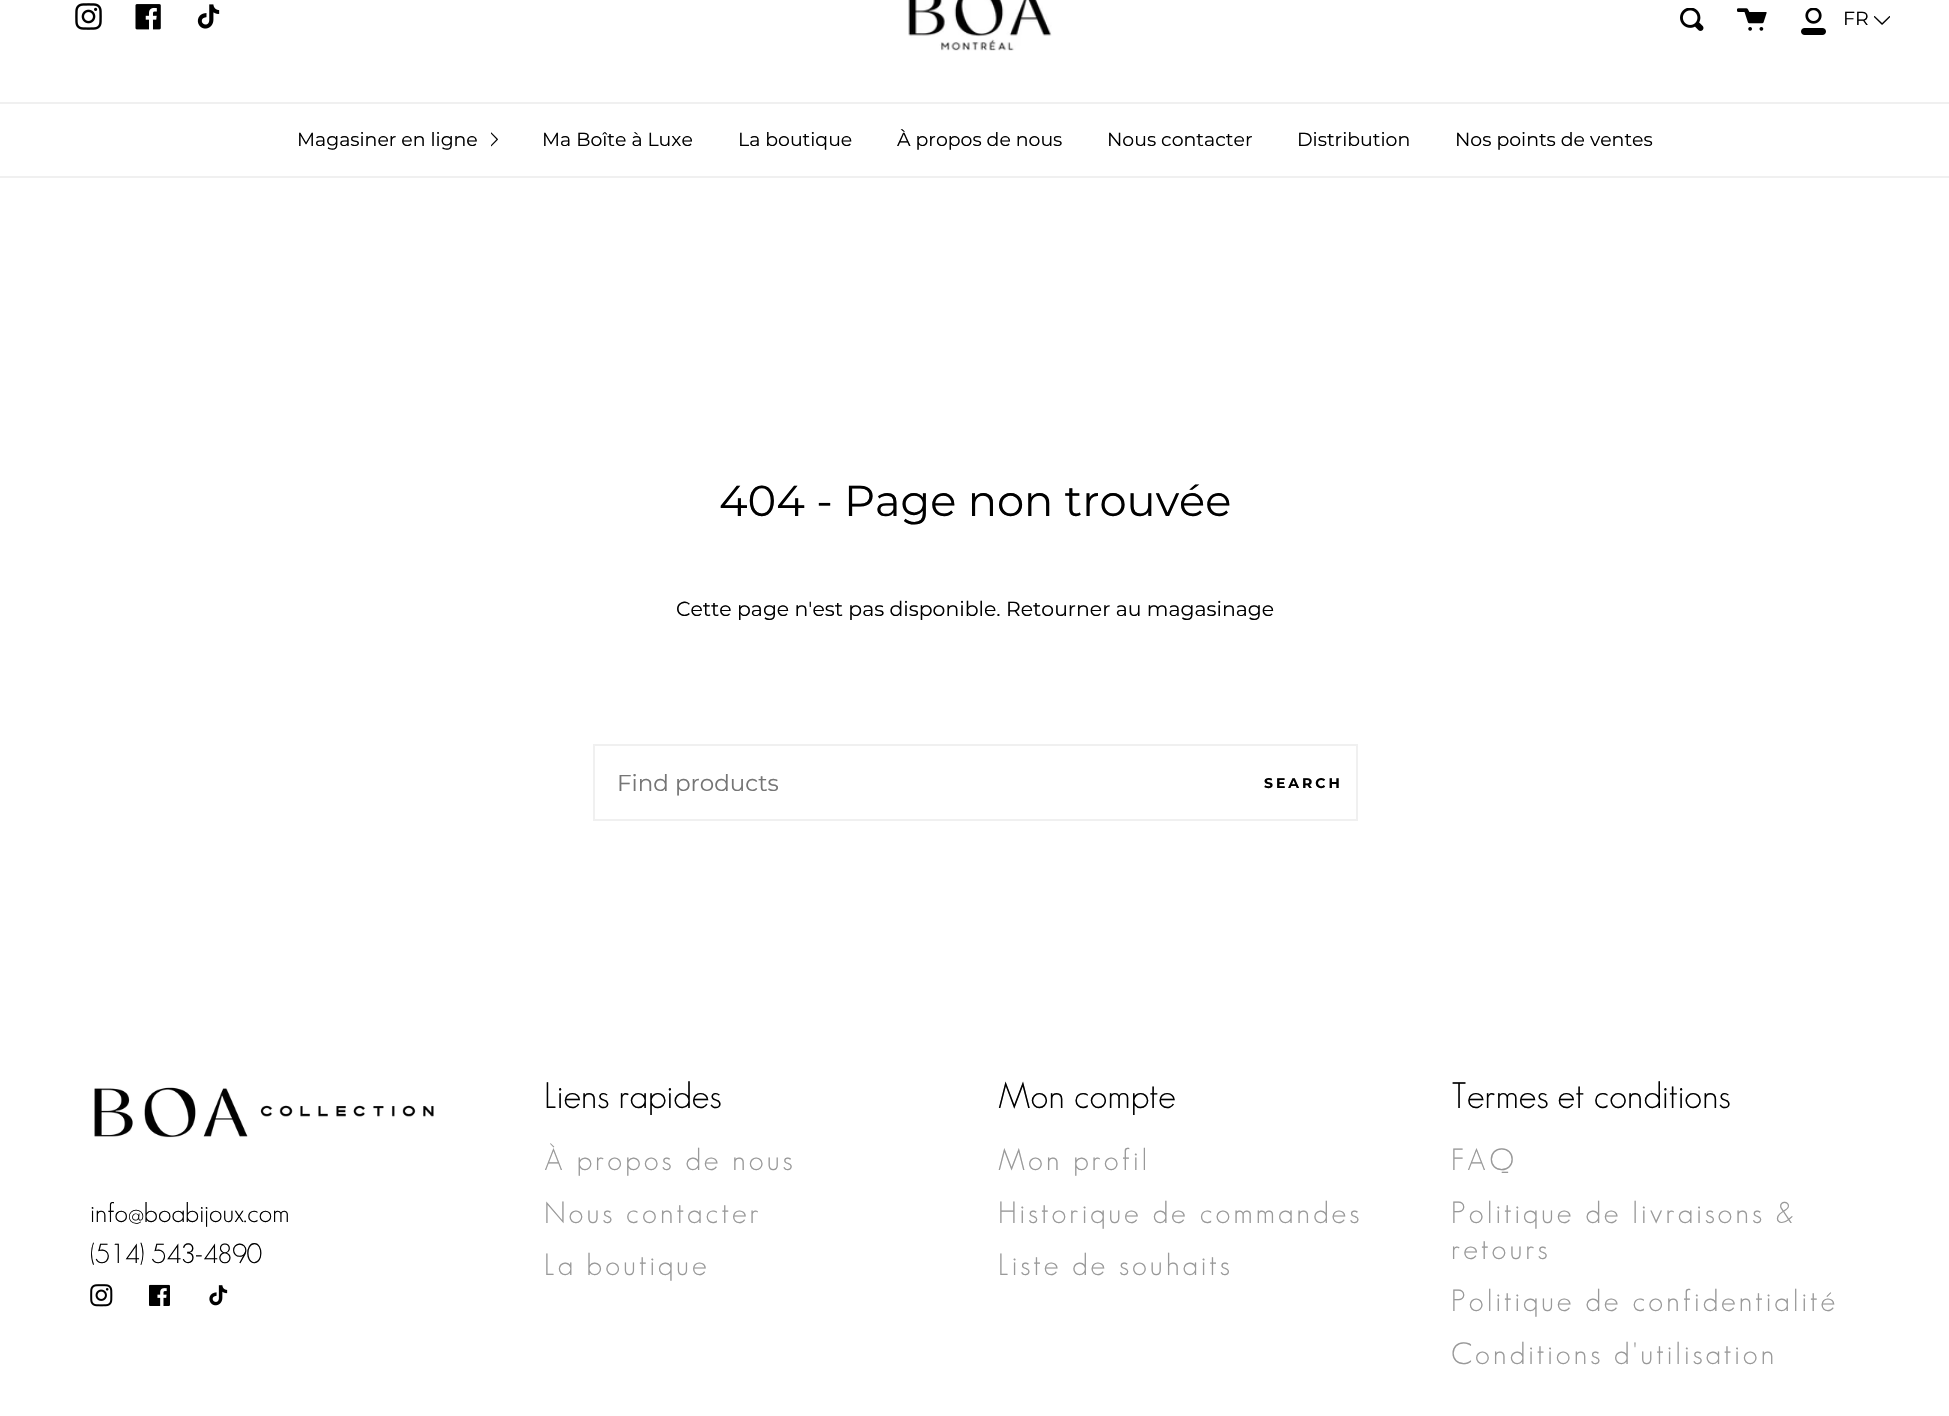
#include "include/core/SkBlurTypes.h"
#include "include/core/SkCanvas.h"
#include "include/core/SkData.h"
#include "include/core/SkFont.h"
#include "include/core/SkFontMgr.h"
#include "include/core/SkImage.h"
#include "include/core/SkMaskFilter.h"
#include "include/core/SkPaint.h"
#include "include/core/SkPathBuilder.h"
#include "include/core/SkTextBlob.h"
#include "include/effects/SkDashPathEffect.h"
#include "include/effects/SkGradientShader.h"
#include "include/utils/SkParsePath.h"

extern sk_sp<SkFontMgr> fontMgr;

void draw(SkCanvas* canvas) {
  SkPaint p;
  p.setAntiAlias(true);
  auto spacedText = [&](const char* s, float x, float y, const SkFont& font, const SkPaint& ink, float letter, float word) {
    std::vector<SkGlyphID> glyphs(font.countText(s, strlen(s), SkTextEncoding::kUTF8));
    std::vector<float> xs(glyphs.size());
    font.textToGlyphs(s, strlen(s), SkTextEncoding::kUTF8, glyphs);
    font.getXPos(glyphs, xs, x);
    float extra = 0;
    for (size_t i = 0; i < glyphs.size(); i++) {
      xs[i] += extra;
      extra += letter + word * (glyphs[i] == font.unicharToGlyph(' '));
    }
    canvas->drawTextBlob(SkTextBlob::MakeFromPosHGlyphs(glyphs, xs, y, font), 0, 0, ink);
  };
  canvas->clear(SK_ColorWHITE);
  p.setColor(SkColorSetRGB(240, 240, 240));
  canvas->drawRect(SkRect::MakeLTRB(0, 176, 1949, 178), p);
  canvas->drawImageRect(SkImages::DeferredFromEncodedData(SkData::MakeFromFileName("images/1.png")), SkRect::MakeLTRB(75, 3, 102, 30), SkSamplingOptions());
  canvas->drawImageRect(SkImages::DeferredFromEncodedData(SkData::MakeFromFileName("images/2.png")), SkRect::MakeLTRB(135, 4, 161, 30), SkSamplingOptions());
  canvas->drawImageRect(SkImages::DeferredFromEncodedData(SkData::MakeFromFileName("images/3.png")), SkRect::MakeLTRB(197, 4, 220, 29), SkSamplingOptions());
  canvas->drawImageRect(SkImages::DeferredFromEncodedData(SkData::MakeFromFileName("images/4.png")), SkRect::MakeLTRB(908, 0, 1052, 51), SkSamplingOptions());
  canvas->drawImageRect(SkImages::DeferredFromEncodedData(SkData::MakeFromFileName("images/5.png")), SkRect::MakeLTRB(1680, 8, 1704, 31), SkSamplingOptions());
  canvas->drawImageRect(SkImages::DeferredFromEncodedData(SkData::MakeFromFileName("images/6.png")), SkRect::MakeLTRB(1737, 8, 1767, 31), SkSamplingOptions());
  canvas->drawImageRect(SkImages::DeferredFromEncodedData(SkData::MakeFromFileName("images/7.png")), SkRect::MakeLTRB(1801, 8, 1826, 35), SkSamplingOptions());
  canvas->drawImageRect(SkImages::DeferredFromEncodedData(SkData::MakeFromFileName("images/8.png")), SkRect::MakeLTRB(1874, 16, 1890, 25), SkSamplingOptions());
  canvas->drawRect(SkRect::MakeLTRB(0, 102, 1949, 104), p);
  canvas->drawImageRect(SkImages::DeferredFromEncodedData(SkData::MakeFromFileName("images/9.png")), SkRect::MakeLTRB(491, 132, 498, 147), SkSamplingOptions());
  p.setStyle(SkPaint::kStroke_Style);
  p.setStrokeWidth(2);
  canvas->drawRect(SkRect::MakeLTRB(594, 745, 1357, 820), p);
  canvas->drawImageRect(SkImages::DeferredFromEncodedData(SkData::MakeFromFileName("images/10.png")), SkRect::MakeLTRB(94, 1087, 434, 1138), SkSamplingOptions());
  canvas->drawImageRect(SkImages::DeferredFromEncodedData(SkData::MakeFromFileName("images/11.png")), SkRect::MakeLTRB(90, 1284, 113, 1307), SkSamplingOptions());
  canvas->drawImageRect(SkImages::DeferredFromEncodedData(SkData::MakeFromFileName("images/12.png")), SkRect::MakeLTRB(149, 1284, 170, 1306), SkSamplingOptions());
  canvas->drawImageRect(SkImages::DeferredFromEncodedData(SkData::MakeFromFileName("images/13.png")), SkRect::MakeLTRB(209, 1285, 228, 1306), SkSamplingOptions());
  SkFont font1(fontMgr->matchFamilyStyle("Montserrat", SkFontStyle::Normal()), 19);
  font1.setSubpixel(true);
  p.setStyle(SkPaint::kFill_Style);
  p.setColor(SK_ColorBLACK);
  canvas->drawString("FR", 1843, 25, font1, p);
  SkFont font2(fontMgr->matchFamilyStyle("Montserrat", SkFontStyle::Normal()), 18.9f);
  font2.setSubpixel(true);
  canvas->drawString("Magasiner en ligne", 297, 146, font2, p);
  canvas->drawString("Ma Boîte à Luxe", 542, 146, font2, p);
  canvas->drawString("La boutique", 738, 146, font2, p);
  canvas->drawString("À propos de nous", 897, 146, font2, p);
  canvas->drawString("Nous contacter", 1107, 146, font2, p);
  canvas->drawString("Distribution", 1297, 146, font2, p);
  canvas->drawString("Nos points de ventes", 1455, 146, font2, p);
  SkFont font3(fontMgr->matchFamilyStyle("Montserrat", SkFontStyle::Normal()), 43.25f);
  font3.setSubpixel(true);
  canvas->drawString("404 - Page non trouvée", 719, 516, font3, p);
  SkFont font4(fontMgr->matchFamilyStyle("Montserrat", SkFontStyle::Normal()), 20.4f);
  font4.setSubpixel(true);
  canvas->drawString("Cette page n'est pas disponible. Retourner au magasinage", 676, 616, font4, p);
  SkFont font5(fontMgr->matchFamilyStyle("Montserrat", SkFontStyle::Normal()), 23);
  font5.setSubpixel(true);
  p.setColor(SkColorSetRGB(117, 117, 117));
  canvas->drawString("Find products", 617, 791, font5, p);
  SkFont font6(fontMgr->matchFamilyStyle("Montserrat", SkFontStyle::Bold()), 14);
  font6.setSubpixel(true);
  p.setColor(SK_ColorBLACK);
  spacedText("SEARCH", 1264, 788, font6, p, 3, 0);
  SkFont font7(fontMgr->matchFamilyStyle("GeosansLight", SkFontStyle(300, SkFontStyle::kNormal_Width, SkFontStyle::kUpright_Slant)), 27);
  font7.setSubpixel(true);
  canvas->drawString("info@boabijoux.com", 90, 1222, font7, p);
  canvas->drawString("(514) 543-4890", 90, 1263, font7, p);
  SkFont font8(fontMgr->matchFamilyStyle("GeosansLight", SkFontStyle(300, SkFontStyle::kNormal_Width, SkFontStyle::kUpright_Slant)), 36);
  font8.setSubpixel(true);
  canvas->drawString("Liens rapides", 544, 1108, font8, p);
  SkFont font9(fontMgr->matchFamilyStyle("GeosansLight", SkFontStyle(300, SkFontStyle::kNormal_Width, SkFontStyle::kUpright_Slant)), 30);
  font9.setSubpixel(true);
  p.setColor(SkColorSetRGB(153, 153, 153));
  spacedText("À propos de nous", 544, 1170, font9, p, 3, 0);
  spacedText("Nous contacter", 544, 1223, font9, p, 3, 0);
  spacedText("La boutique", 544, 1275, font9, p, 3, 0);
  p.setColor(SK_ColorBLACK);
  canvas->drawString("Mon compte", 998, 1108, font8, p);
  p.setColor(SkColorSetRGB(153, 153, 153));
  spacedText("Mon profil", 998, 1170, font9, p, 3, 0);
  spacedText("Historique de commandes", 998, 1223, font9, p, 3, 0);
  spacedText("Liste de souhaits", 998, 1275, font9, p, 3, 0);
  p.setColor(SK_ColorBLACK);
  canvas->drawString("Termes et conditions", 1451, 1108, font8, p);
  p.setColor(SkColorSetRGB(153, 153, 153));
  spacedText("FAQ", 1451, 1170, font9, p, 3, 0);
  spacedText("Politique de livraisons &", 1451, 1223, font9, p, 3, 0);
  spacedText("retours", 1451, 1259, font9, p, 3, 0);
  spacedText("Politique de confidentialité", 1451, 1311, font9, p, 3, 0);
  spacedText("Conditions d'utilisation", 1451, 1364, font9, p, 3, 0);
}
